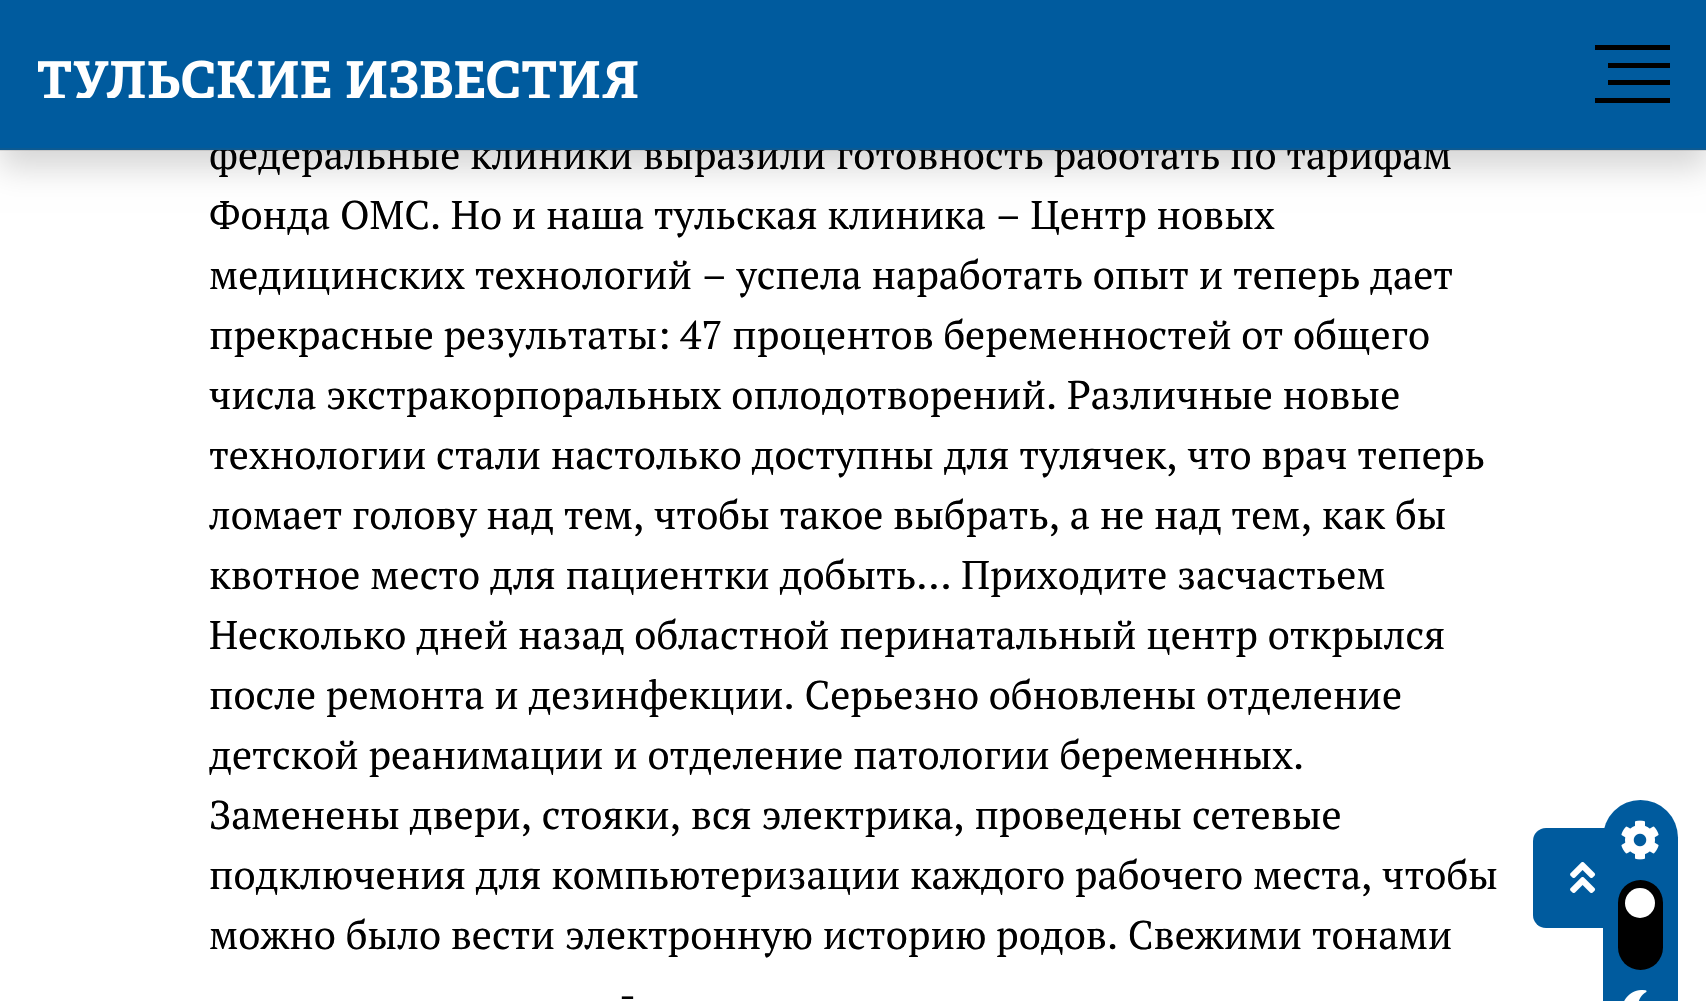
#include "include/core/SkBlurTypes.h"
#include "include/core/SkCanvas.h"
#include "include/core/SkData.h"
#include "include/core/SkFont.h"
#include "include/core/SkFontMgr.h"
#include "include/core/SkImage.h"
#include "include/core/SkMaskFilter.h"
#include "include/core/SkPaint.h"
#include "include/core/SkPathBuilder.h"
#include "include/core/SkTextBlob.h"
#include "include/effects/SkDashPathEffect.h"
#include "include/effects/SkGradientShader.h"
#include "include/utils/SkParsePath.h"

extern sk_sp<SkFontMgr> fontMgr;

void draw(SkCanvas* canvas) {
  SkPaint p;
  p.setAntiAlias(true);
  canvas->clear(SK_ColorWHITE);
  p.setColor(SkColorSetARGB(41, 0, 0, 0));
  p.setMaskFilter(SkMaskFilter::MakeBlur(kNormal_SkBlurStyle, 15));
  canvas->drawRect(SkRect::MakeLTRB(0, 18, 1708, 168), p);
  p.setMaskFilter(nullptr);
  p.setColor(SkColorSetRGB(0, 91, 158));
  canvas->drawRoundRect(SkRect::MakeLTRB(1533, 828, 1633, 928), 13, 13, p);
  canvas->drawImageRect(SkImages::DeferredFromEncodedData(SkData::MakeFromFileName("images/2.png")), SkRect::MakeLTRB(1570, 862, 1596, 893), SkSamplingOptions());
  canvas->drawRoundRect(SkRect::MakeLTRB(1603, 800, 1678, 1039), 37.5f, 37.5f, p);
  canvas->drawImageRect(SkImages::DeferredFromEncodedData(SkData::MakeFromFileName("images/3.png")), SkRect::MakeLTRB(1621, 820, 1659, 860), SkSamplingOptions());
  p.setColor(SK_ColorBLACK);
  canvas->drawRoundRect(SkRect::MakeLTRB(1618, 880, 1663, 970), 22.5f, 22.5f, p);
  p.setColor(SK_ColorWHITE);
  canvas->drawCircle(1640, 903, 15, p);
  canvas->drawImageRect(SkImages::DeferredFromEncodedData(SkData::MakeFromFileName("images/4.png")), SkRect::MakeLTRB(1624, 990, 1647, 1001), SkSamplingOptions());
  SkFont font1(fontMgr->matchFamilyStyle("PT Serif", SkFontStyle::Normal()), 40);
  font1.setSubpixel(true);
  p.setColor(SK_ColorBLACK);
  canvas->drawString("федеральные клиники выразили готовность работать по тарифам", 209, 169, font1, p);
  p.setColor(SkColorSetRGB(0, 91, 158));
  canvas->drawRect(SkRect::MakeLTRB(0, 0, 1706, 150), p);
  p.setColor(SK_ColorBLACK);
  canvas->drawRect(SkRect::MakeLTRB(1595, 98, 1670, 103), p);
  canvas->drawRect(SkRect::MakeLTRB(1608, 80, 1670, 85), p);
  canvas->drawRect(SkRect::MakeLTRB(1608, 63, 1670, 68), p);
  canvas->drawRect(SkRect::MakeLTRB(1595, 45, 1670, 50), p);
  canvas->drawImageRect(SkImages::DeferredFromEncodedData(SkData::MakeFromFileName("images/1.png")), SkRect::MakeLTRB(38, 60, 638, 98), SkSamplingOptions());
  p.setColor(SkColorSetARGB(38, 81, 81, 81));
  canvas->drawRect(SkRect::MakeLTRB(0, 148, 1706, 151), p);
  p.setColor(SK_ColorBLACK);
  canvas->drawString("Фонда ОМС. Но и наша тульская клиника – Центр новых", 209, 229, font1, p);
  canvas->drawString("медицинских технологий – успела наработать опыт и теперь дает", 209, 289, font1, p);
  canvas->drawString("прекрасные результаты: 47 процентов беременностей от общего", 209, 349, font1, p);
  canvas->drawString("числа экстракорпоральных оплодотворений. Различные новые", 209, 409, font1, p);
  canvas->drawString("технологии стали настолько доступны для тулячек, что врач теперь", 209, 469, font1, p);
  canvas->drawString("ломает голову над тем, чтобы такое выбрать, а не над тем, как бы", 209, 529, font1, p);
  canvas->drawString("квотное место для пациентки добыть… Приходите за счастьем", 209, 589, font1, p);
  canvas->drawString("Несколько дней назад областной перинатальный центр открылся", 209, 649, font1, p);
  canvas->drawString("после ремонта и дезинфекции. Серьезно обновлены отделение", 209, 709, font1, p);
  canvas->drawString("детской реанимации и отделение патологии беременных.", 209, 769, font1, p);
  canvas->drawString("Заменены двери, стояки, вся электрика, проведены сетевые", 209, 829, font1, p);
  canvas->drawString("подключения для компьютеризации каждого рабочего места, чтобы", 209, 889, font1, p);
  canvas->drawString("можно было вести электронную историю родов. Свежими тонами", 209, 949, font1, p);
  canvas->drawString("-", 619, 1009, font1, p);
}
